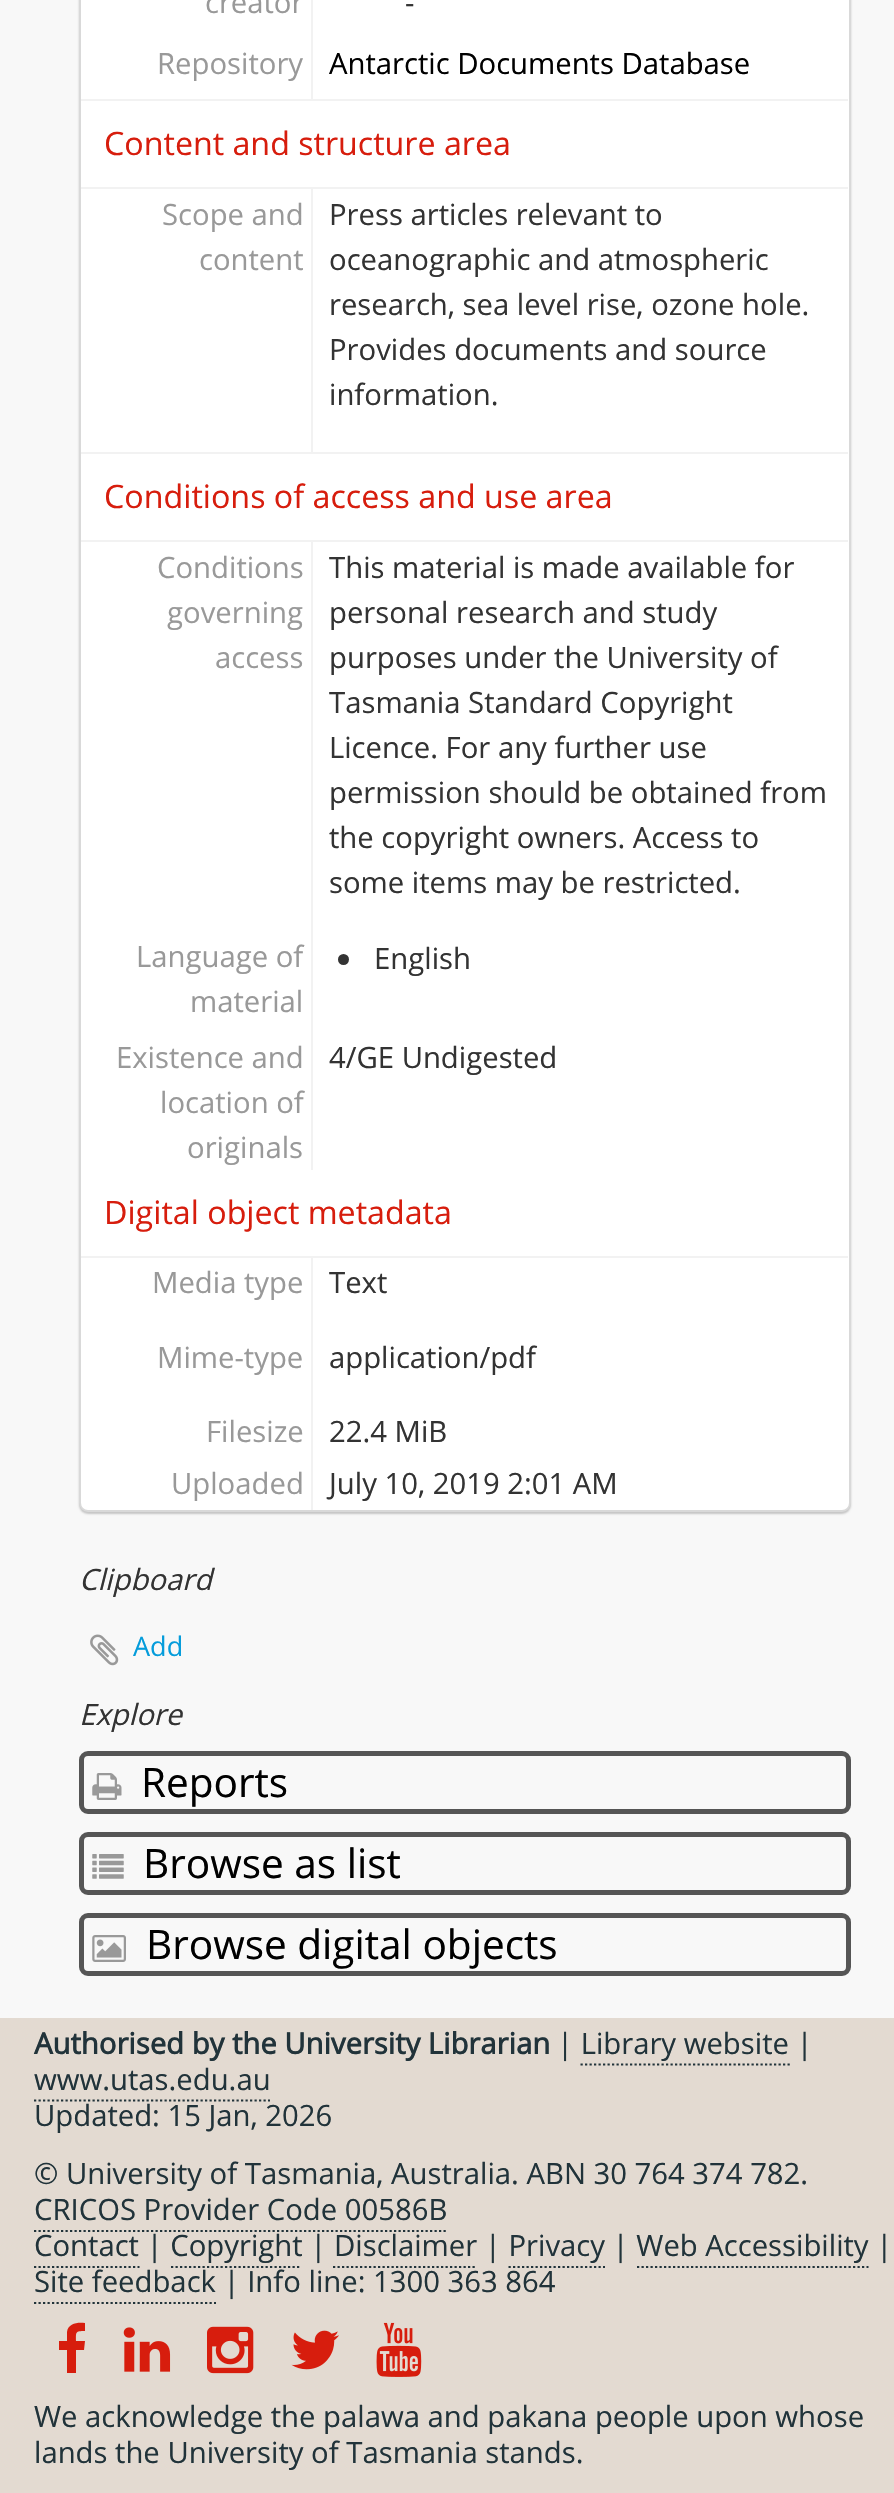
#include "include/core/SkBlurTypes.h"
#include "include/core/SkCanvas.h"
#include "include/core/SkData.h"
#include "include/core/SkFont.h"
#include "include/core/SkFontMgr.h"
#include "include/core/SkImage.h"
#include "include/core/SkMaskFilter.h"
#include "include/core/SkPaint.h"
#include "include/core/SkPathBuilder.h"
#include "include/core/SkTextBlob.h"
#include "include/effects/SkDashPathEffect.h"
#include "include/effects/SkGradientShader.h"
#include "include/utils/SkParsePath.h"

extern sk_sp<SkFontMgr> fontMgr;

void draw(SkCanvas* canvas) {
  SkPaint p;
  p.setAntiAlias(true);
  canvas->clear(SkColorSetRGB(248, 248, 248));
  p.setColor(SkColorSetARGB(51, 0, 0, 0));
  p.setMaskFilter(SkMaskFilter::MakeBlur(kNormal_SkBlurStyle, 1));
  canvas->drawRoundRect(SkRect::MakeLTRB(79, -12, 851, 1514), 9, 9, p);
  p.setMaskFilter(nullptr);
  p.setColor(SK_ColorWHITE);
  canvas->drawRoundRect(SkRect::MakeLTRB(80, -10, 850, 1511), 8, 8, p);
  p.setStyle(SkPaint::kStroke_Style);
  p.setStrokeWidth(2);
  p.setColor(SkColorSetRGB(217, 217, 217));
  canvas->drawRoundRect(SkRect::MakeLTRB(80, -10, 850, 1511), 8, 8, p);
  p.setStyle(SkPaint::kFill_Style);
  p.setColor(SkColorSetRGB(242, 242, 242));
  canvas->drawRect(SkRect::MakeLTRB(311, 0, 313, 99), p);
  canvas->drawRect(SkRect::MakeLTRB(81, 99, 848, 101), p);
  canvas->drawRect(SkRect::MakeLTRB(81, 187, 848, 189), p);
  canvas->drawRect(SkRect::MakeLTRB(311, 189, 313, 452), p);
  canvas->drawRect(SkRect::MakeLTRB(81, 452, 848, 454), p);
  canvas->drawRect(SkRect::MakeLTRB(81, 540, 848, 542), p);
  canvas->drawRect(SkRect::MakeLTRB(311, 542, 313, 1170), p);
  p.setColor(SkColorSetRGB(51, 51, 51));
  canvas->drawCircle(343.5f, 959.5f, 5.5f, p);
  p.setColor(SkColorSetRGB(242, 242, 242));
  canvas->drawRect(SkRect::MakeLTRB(81, 1256, 848, 1258), p);
  canvas->drawRect(SkRect::MakeLTRB(311, 1258, 313, 1510), p);
  canvas->drawImageRect(SkImages::DeferredFromEncodedData(SkData::MakeFromFileName("images/1.png")), SkRect::MakeLTRB(90, 1634, 119, 1666), SkSamplingOptions());
  p.setStyle(SkPaint::kStroke_Style);
  p.setStrokeWidth(5);
  p.setColor(SkColorSetRGB(85, 85, 85));
  canvas->drawRoundRect(SkRect::MakeLTRB(81.5f, 1753.5f, 848.5f, 1811.5f), 6.5f, 6.5f, p);
  canvas->drawImageRect(SkImages::DeferredFromEncodedData(SkData::MakeFromFileName("images/2.png")), SkRect::MakeLTRB(92, 1773, 122, 1800), SkSamplingOptions());
  canvas->drawRoundRect(SkRect::MakeLTRB(81.5f, 1834.5f, 848.5f, 1892.5f), 6.5f, 6.5f, p);
  canvas->drawImageRect(SkImages::DeferredFromEncodedData(SkData::MakeFromFileName("images/3.png")), SkRect::MakeLTRB(92, 1854, 124, 1879), SkSamplingOptions());
  canvas->drawRoundRect(SkRect::MakeLTRB(81.5f, 1915.5f, 848.5f, 1973.5f), 6.5f, 6.5f, p);
  canvas->drawImageRect(SkImages::DeferredFromEncodedData(SkData::MakeFromFileName("images/4.png")), SkRect::MakeLTRB(92, 1935, 126, 1962), SkSamplingOptions());
  p.setStyle(SkPaint::kFill_Style);
  p.setColor(SkColorSetRGB(227, 218, 209));
  canvas->drawRect(SkRect::MakeLTRB(0, 2018, 894, 2493), p);
  p.setStyle(SkPaint::kStroke_Style);
  p.setStrokeWidth(2.2f);
  p.setColor(SkColorSetRGB(33, 51, 58));
  p.setPathEffect(SkDashPathEffect::Make({{2.25f, 2.25f}}, 0));
  canvas->drawPath(SkPathBuilder().moveTo(580.5f, 2064.5f).lineTo(790, 2064.5f).detach(), p);
  p.setPathEffect(nullptr);
  p.setPathEffect(SkDashPathEffect::Make({{2.25f, 2.25f}}, 0));
  canvas->drawPath(SkPathBuilder().moveTo(34, 2100.5f).lineTo(270, 2100.5f).detach(), p);
  p.setPathEffect(nullptr);
  p.setPathEffect(SkDashPathEffect::Make({{2.25f, 2.25f}}, 0));
  canvas->drawPath(SkPathBuilder().moveTo(34, 2231).lineTo(448, 2231).detach(), p);
  p.setPathEffect(nullptr);
  p.setPathEffect(SkDashPathEffect::Make({{2.25f, 2.25f}}, 0));
  canvas->drawPath(SkPathBuilder().moveTo(34, 2267).lineTo(139.5f, 2267).detach(), p);
  p.setPathEffect(nullptr);
  p.setPathEffect(SkDashPathEffect::Make({{2.25f, 2.25f}}, 0));
  canvas->drawPath(SkPathBuilder().moveTo(171, 2267).lineTo(301.5f, 2267).detach(), p);
  p.setPathEffect(nullptr);
  p.setPathEffect(SkDashPathEffect::Make({{2.25f, 2.25f}}, 0));
  canvas->drawPath(SkPathBuilder().moveTo(333, 2267).lineTo(477, 2267).detach(), p);
  p.setPathEffect(nullptr);
  p.setPathEffect(SkDashPathEffect::Make({{2.25f, 2.25f}}, 0));
  canvas->drawPath(SkPathBuilder().moveTo(508.5f, 2267).lineTo(605, 2267).detach(), p);
  p.setPathEffect(nullptr);
  p.setPathEffect(SkDashPathEffect::Make({{2.25f, 2.25f}}, 0));
  canvas->drawPath(SkPathBuilder().moveTo(637, 2267).lineTo(868.5f, 2267).detach(), p);
  p.setPathEffect(nullptr);
  p.setPathEffect(SkDashPathEffect::Make({{2.25f, 2.25f}}, 0));
  canvas->drawPath(SkPathBuilder().moveTo(34, 2303).lineTo(216, 2303).detach(), p);
  p.setPathEffect(nullptr);
  p.setStyle(SkPaint::kFill_Style);
  p.setColor(SkColorSetRGB(215, 29, 13));
  canvas->drawPath(SkPathBuilder().moveTo(85, 2323).lineTo(85, 2331).cubicTo(75, 2331, 76, 2332, 76, 2341).lineTo(85, 2341).lineTo(84, 2350).lineTo(76, 2350).lineTo(76, 2373).lineTo(67, 2373).lineTo(67, 2350).lineTo(59, 2350).lineTo(59, 2341).lineTo(67, 2341).lineTo(67, 2332).cubicTo(68, 2323, 78, 2322, 85, 2323).close().detach(), p);
  canvas->drawImageRect(SkImages::DeferredFromEncodedData(SkData::MakeFromFileName("images/5.png")), SkRect::MakeLTRB(123, 2327, 171, 2372), SkSamplingOptions());
  canvas->drawImageRect(SkImages::DeferredFromEncodedData(SkData::MakeFromFileName("images/6.png")), SkRect::MakeLTRB(207, 2326, 254, 2374), SkSamplingOptions());
  canvas->drawImageRect(SkImages::DeferredFromEncodedData(SkData::MakeFromFileName("images/7.png")), SkRect::MakeLTRB(291, 2330, 339, 2370), SkSamplingOptions());
  canvas->drawImageRect(SkImages::DeferredFromEncodedData(SkData::MakeFromFileName("images/8.png")), SkRect::MakeLTRB(376, 2322, 422, 2377), SkSamplingOptions());
  SkFont font1(fontMgr->matchFamilyStyle("Open Sans", SkFontStyle::Normal()), 29.25f);
  font1.setSubpixel(true);
  p.setColor(SkColorSetRGB(153, 153, 153));
  canvas->drawString("creator", 205, 13, font1, p);
  p.setColor(SkColorSetRGB(51, 51, 51));
  canvas->drawString("-", 405, 13, font1, p);
  p.setColor(SkColorSetRGB(153, 153, 153));
  canvas->drawString("Repository", 157, 74, font1, p);
  p.setColor(SK_ColorBLACK);
  canvas->drawString("Antarctic Documents Database", 329, 74, font1, p);
  SkFont font2(fontMgr->matchFamilyStyle("Open Sans", SkFontStyle::Normal()), 32.2f);
  font2.setSubpixel(true);
  p.setColor(SkColorSetRGB(215, 29, 13));
  canvas->drawString("Content and structure area", 104, 155, font2, p);
  p.setColor(SkColorSetRGB(153, 153, 153));
  canvas->drawString("Scope and", 162, 225, font1, p);
  canvas->drawString("content", 199, 270, font1, p);
  p.setColor(SkColorSetRGB(51, 51, 51));
  canvas->drawString("Press articles relevant to", 329, 225, font1, p);
  canvas->drawString("oceanographic and atmospheric", 329, 270, font1, p);
  canvas->drawString("research, sea level rise, ozone hole.", 329, 315, font1, p);
  canvas->drawString("Provides documents and source", 329, 360, font1, p);
  canvas->drawString("information.", 329, 405, font1, p);
  p.setColor(SkColorSetRGB(215, 29, 13));
  canvas->drawString("Conditions of access and use area", 104, 508, font2, p);
  p.setColor(SkColorSetRGB(153, 153, 153));
  canvas->drawString("Conditions", 157, 578, font1, p);
  canvas->drawString("governing", 167, 623, font1, p);
  canvas->drawString("access", 215, 668, font1, p);
  p.setColor(SkColorSetRGB(51, 51, 51));
  canvas->drawString("This material is made available for", 329, 578, font1, p);
  canvas->drawString("personal research and study", 329, 623, font1, p);
  canvas->drawString("purposes under the University of", 329, 668, font1, p);
  canvas->drawString("Tasmania Standard Copyright", 329, 713, font1, p);
  canvas->drawString("Licence. For any further use", 329, 758, font1, p);
  canvas->drawString("permission should be obtained from", 329, 803, font1, p);
  canvas->drawString("the copyright owners. Access to", 329, 848, font1, p);
  canvas->drawString("some items may be restricted.", 329, 893, font1, p);
  p.setColor(SkColorSetRGB(153, 153, 153));
  canvas->drawString("Language of", 136, 967, font1, p);
  canvas->drawString("material", 190, 1012, font1, p);
  p.setColor(SkColorSetRGB(51, 51, 51));
  canvas->drawString("English", 374, 969, font1, p);
  p.setColor(SkColorSetRGB(153, 153, 153));
  canvas->drawString("Existence and", 116, 1068, font1, p);
  canvas->drawString("location of", 160, 1113, font1, p);
  canvas->drawString("originals", 187, 1158, font1, p);
  p.setColor(SkColorSetRGB(51, 51, 51));
  canvas->drawString("4/GE Undigested", 329, 1068, font1, p);
  p.setColor(SkColorSetRGB(215, 29, 13));
  canvas->drawString("Digital object metadata", 104, 1224, font2, p);
  p.setColor(SkColorSetRGB(153, 153, 153));
  canvas->drawString("Media type", 152, 1293, font1, p);
  p.setColor(SkColorSetRGB(51, 51, 51));
  canvas->drawString("Text", 329, 1293, font1, p);
  p.setColor(SkColorSetRGB(153, 153, 153));
  canvas->drawString("Mime-type", 157, 1368, font1, p);
  p.setColor(SkColorSetRGB(51, 51, 51));
  canvas->drawString("application/pdf", 329, 1368, font1, p);
  p.setColor(SkColorSetRGB(153, 153, 153));
  canvas->drawString("Filesize", 206, 1442, font1, p);
  p.setColor(SkColorSetRGB(51, 51, 51));
  canvas->drawString("22.4 MiB", 329, 1442, font1, p);
  p.setColor(SkColorSetRGB(153, 153, 153));
  canvas->drawString("Uploaded", 171, 1494, font1, p);
  p.setColor(SkColorSetRGB(51, 51, 51));
  canvas->drawString("July 10, 2019 2:01 AM", 329, 1494, font1, p);
  SkFont font3(fontMgr->matchFamilyStyle("Open Sans", SkFontStyle::Italic()), 29.25f);
  font3.setSubpixel(true);
  canvas->drawString("Clipboard", 79, 1590, font3, p);
  SkFont font4(fontMgr->matchFamilyStyle("Open Sans", SkFontStyle::Normal()), 27);
  font4.setSubpixel(true);
  p.setColor(SkColorSetRGB(4, 156, 219));
  canvas->drawString("Add", 133, 1656, font4, p);
  p.setColor(SkColorSetRGB(51, 51, 51));
  canvas->drawString("Explore", 79, 1725, font3, p);
  SkFont font5(fontMgr->matchFamilyStyle("Open Sans", SkFontStyle::Normal()), 40.5f);
  font5.setSubpixel(true);
  p.setColor(SK_ColorBLACK);
  canvas->drawString("Reports", 141, 1797, font5, p);
  canvas->drawString("Browse as list", 143, 1878, font5, p);
  canvas->drawString("Browse digital objects", 146, 1959, font5, p);
  SkFont font6(fontMgr->matchFamilyStyle("Open Sans", SkFontStyle::Bold()), 29.25f);
  font6.setSubpixel(true);
  p.setColor(SkColorSetRGB(33, 51, 58));
  canvas->drawString("Authorised by the University Librarian", 34, 2054, font6, p);
  canvas->drawString("| Library website |", 557, 2054, font1, p);
  canvas->drawString("www.utas.edu.au", 34, 2090, font1, p);
  canvas->drawString("Updated: 15 Jan, 2026", 34, 2126, font1, p);
  canvas->drawString("© University of Tasmania, Australia. ABN 30 764 374 782.", 34, 2184, font1, p);
  canvas->drawString("CRICOS Provider Code 00586B", 34, 2220, font1, p);
  canvas->drawString("Contact | Copyright | Disclaimer | Privacy | Web Accessibility |", 34, 2256, font1, p);
  canvas->drawString("Site feedback | Info line: 1300 363 864", 34, 2292, font1, p);
  canvas->drawString("We acknowledge the palawa and pakana people upon whose", 34, 2427, font1, p);
  canvas->drawString("lands the University of Tasmania stands.", 34, 2463, font1, p);
}
